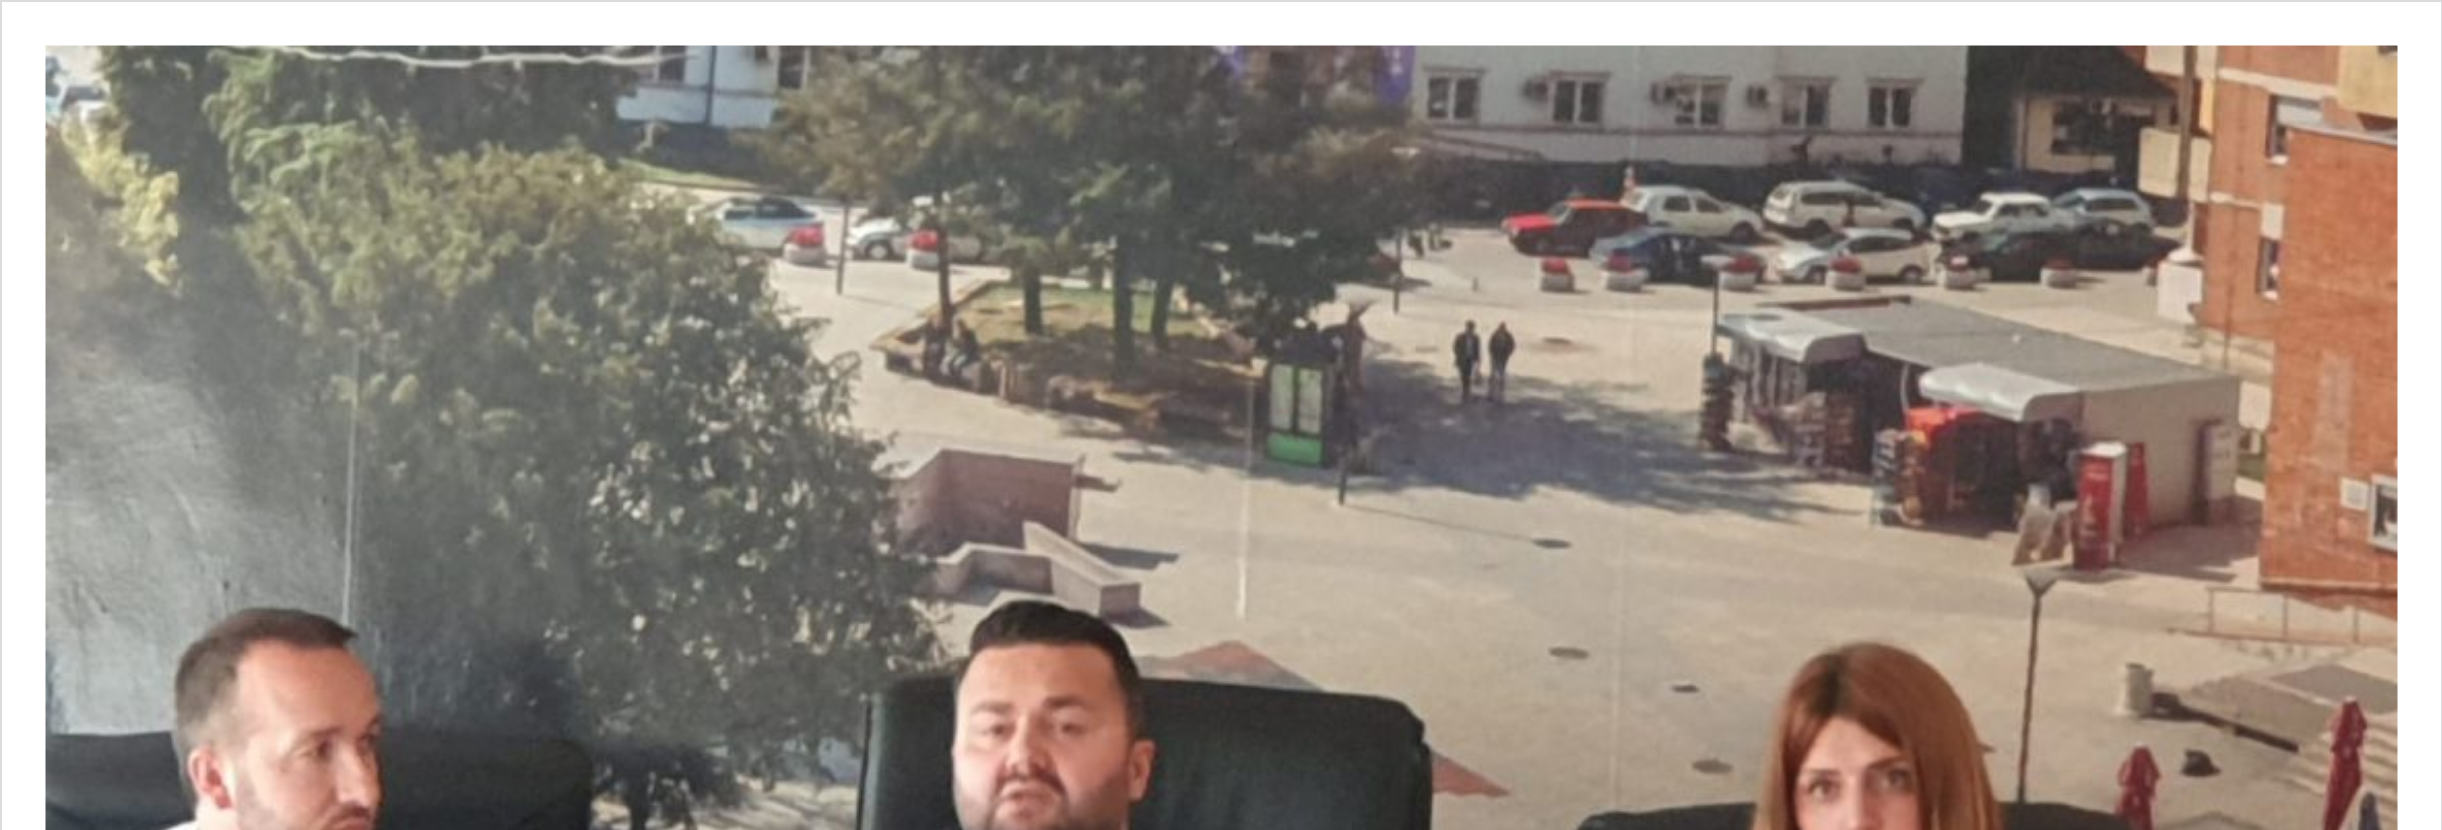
#include "include/core/SkBlurTypes.h"
#include "include/core/SkCanvas.h"
#include "include/core/SkData.h"
#include "include/core/SkFont.h"
#include "include/core/SkFontMgr.h"
#include "include/core/SkImage.h"
#include "include/core/SkMaskFilter.h"
#include "include/core/SkPaint.h"
#include "include/core/SkPathBuilder.h"
#include "include/core/SkTextBlob.h"
#include "include/effects/SkDashPathEffect.h"
#include "include/effects/SkGradientShader.h"
#include "include/utils/SkParsePath.h"

extern sk_sp<SkFontMgr> fontMgr;

void draw(SkCanvas* canvas) {
  SkPaint p;
  p.setAntiAlias(true);
  canvas->clear(SK_ColorWHITE);
  p.setStyle(SkPaint::kStroke_Style);
  p.setStrokeWidth(2);
  p.setColor(SkColorSetRGB(220, 220, 222));
  canvas->drawRect(SkRect::MakeLTRB(1, 1, 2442, 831), p);
  canvas->drawImageRect(SkImages::DeferredFromEncodedData(SkData::MakeFromFileName("images/1.png")), SkRect::MakeLTRB(45, 45, 2398, 830), SkSamplingOptions());
}
